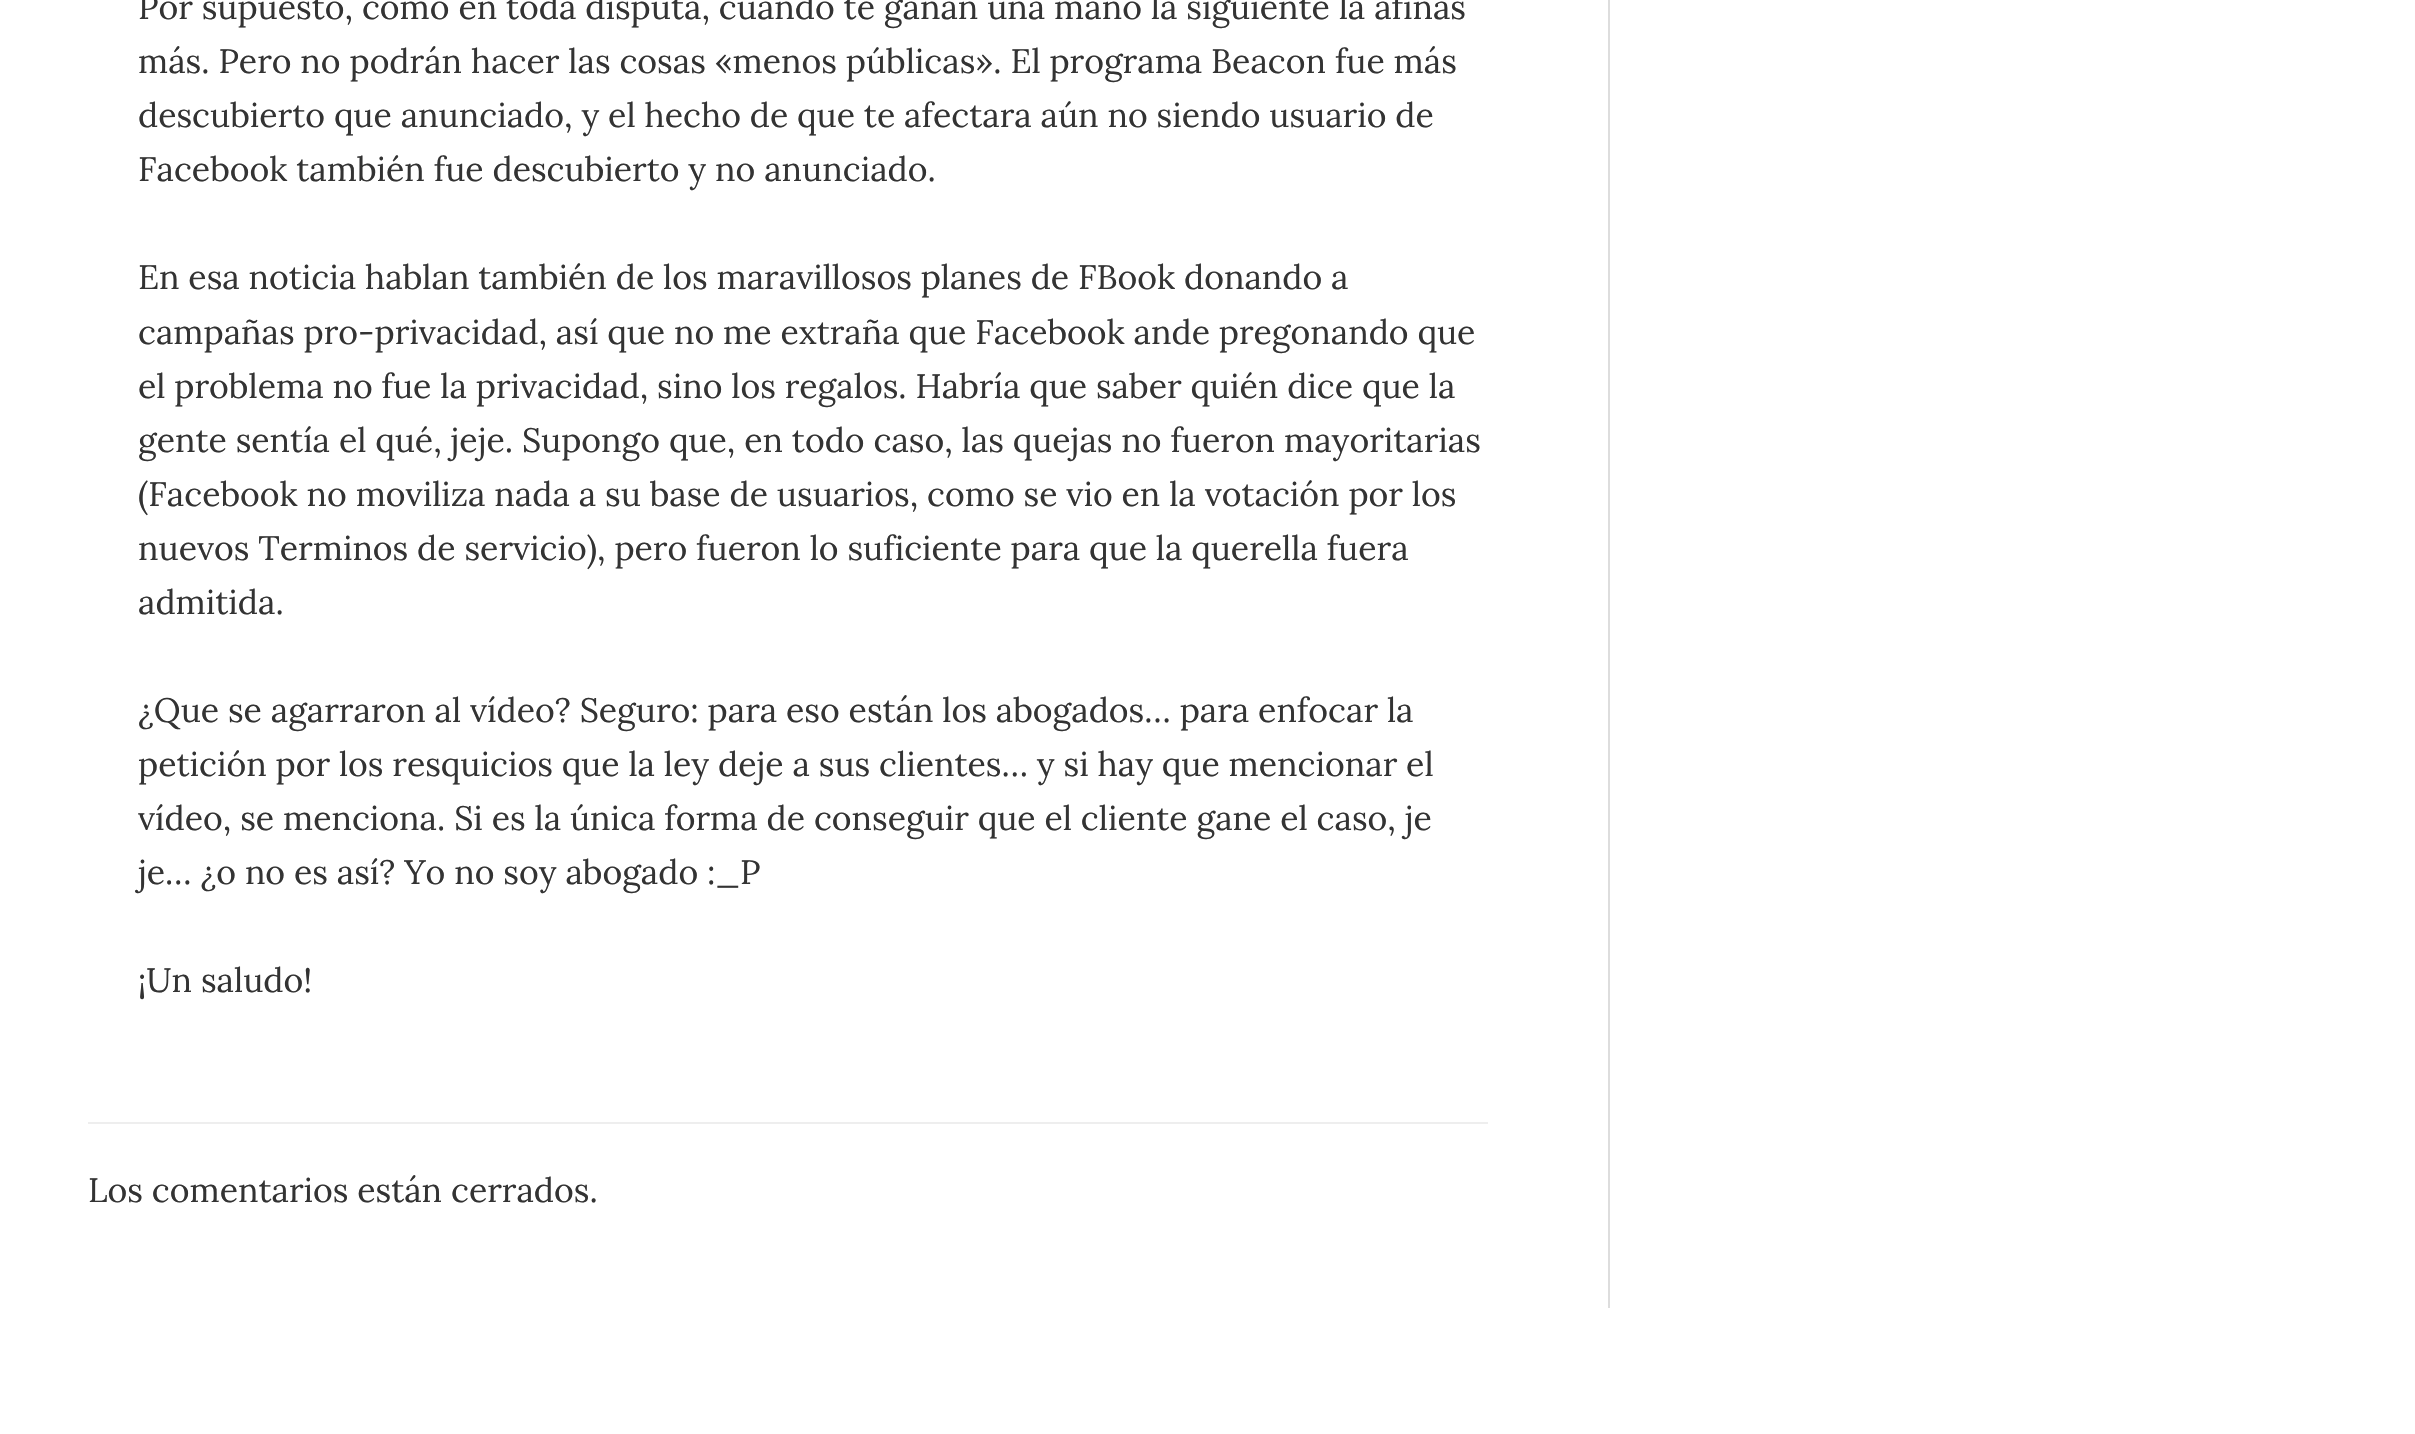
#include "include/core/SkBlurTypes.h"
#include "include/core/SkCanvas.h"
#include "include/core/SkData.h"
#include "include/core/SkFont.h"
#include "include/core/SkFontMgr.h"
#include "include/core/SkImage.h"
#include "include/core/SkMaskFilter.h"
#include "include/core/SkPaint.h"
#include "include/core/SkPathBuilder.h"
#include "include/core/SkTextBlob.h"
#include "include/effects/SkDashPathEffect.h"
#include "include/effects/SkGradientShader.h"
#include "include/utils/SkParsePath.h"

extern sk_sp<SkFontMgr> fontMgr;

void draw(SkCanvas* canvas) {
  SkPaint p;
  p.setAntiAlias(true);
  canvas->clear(SK_ColorWHITE);
  p.setColor(SkColorSetRGB(221, 221, 221));
  canvas->drawRect(SkRect::MakeLTRB(1608, 0, 1610, 1308), p);
  p.setColor(SkColorSetRGB(238, 238, 238));
  canvas->drawRect(SkRect::MakeLTRB(88, 1122, 1488, 1124), p);
  SkFont font1(fontMgr->matchFamilyStyle("Lora", SkFontStyle::Normal()), 33.75f);
  font1.setSubpixel(true);
  p.setColor(SkColorSetRGB(51, 51, 51));
  canvas->drawString("Por supuesto, como en toda disputa, cuando te ganan una mano la siguiente la afinas", 138, 19, font1, p);
  canvas->drawString("más. Pero no podrán hacer las cosas «menos públicas». El programa Beacon fue más", 138, 73, font1, p);
  canvas->drawString("descubierto que anunciado, y el hecho de que te afectara aún no siendo usuario de", 138, 127, font1, p);
  canvas->drawString("Facebook también fue descubierto y no anunciado.", 138, 181, font1, p);
  canvas->drawString("En esa noticia hablan también de los maravillosos planes de FBook donando a", 138, 289, font1, p);
  canvas->drawString("campañas pro-privacidad, así que no me extraña que Facebook ande pregonando que", 138, 344, font1, p);
  canvas->drawString("el problema no fue la privacidad, sino los regalos. Habría que saber quién dice que la", 138, 398, font1, p);
  canvas->drawString("gente sentía el qué, jeje. Supongo que, en todo caso, las quejas no fueron mayoritarias", 138, 452, font1, p);
  canvas->drawString("(Facebook no moviliza nada a su base de usuarios, como se vio en la votación por los", 138, 506, font1, p);
  canvas->drawString("nuevos Terminos de servicio), pero fueron lo suficiente para que la querella fuera", 138, 560, font1, p);
  canvas->drawString("admitida.", 138, 614, font1, p);
  canvas->drawString("¿Que se agarraron al vídeo? Seguro: para eso están los abogados… para enfocar la", 138, 722, font1, p);
  canvas->drawString("petición por los resquicios que la ley deje a sus clientes… y si hay que mencionar el", 138, 776, font1, p);
  canvas->drawString("vídeo, se menciona. Si es la única forma de conseguir que el cliente gane el caso, je", 138, 830, font1, p);
  canvas->drawString("je… ¿o no es así? Yo no soy abogado :_P", 138, 884, font1, p);
  canvas->drawString("¡Un saludo!", 138, 992, font1, p);
  canvas->drawString("Los comentarios están cerrados.", 88, 1202, font1, p);
}
